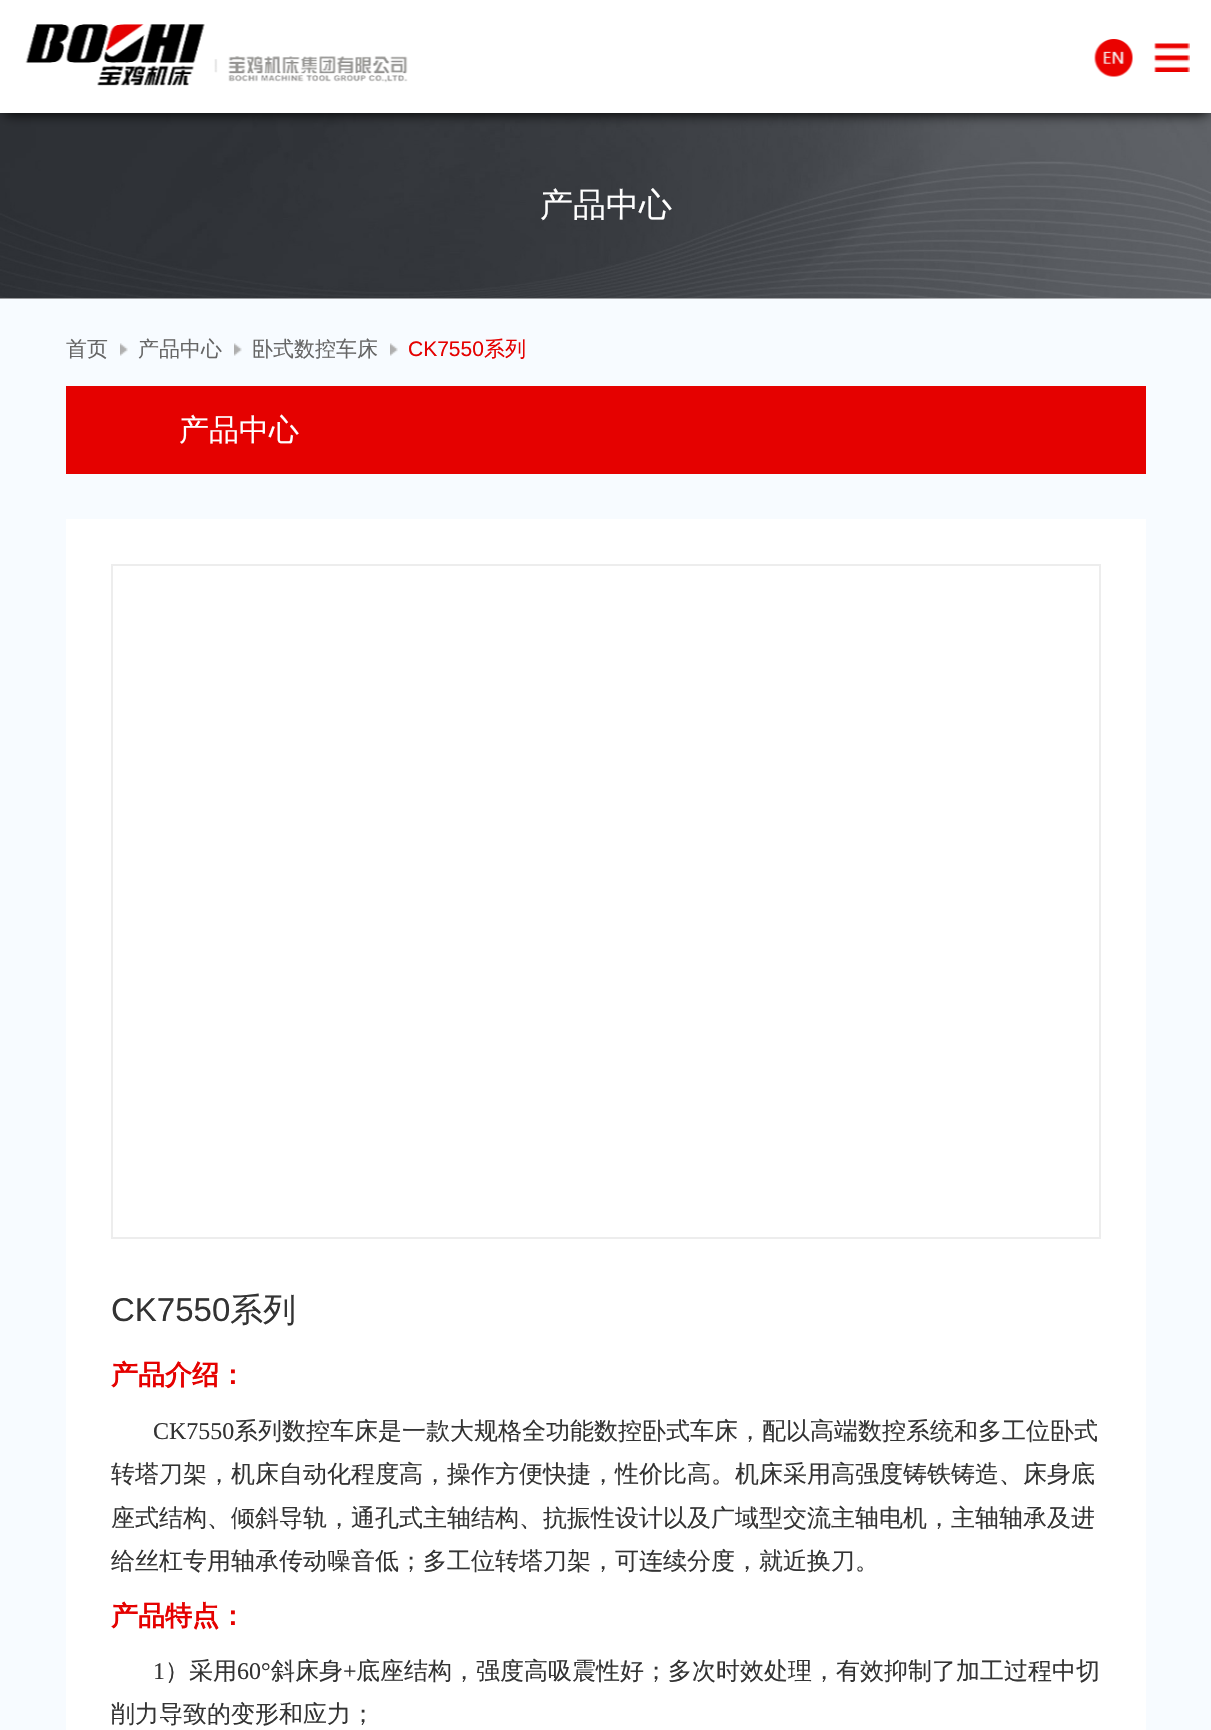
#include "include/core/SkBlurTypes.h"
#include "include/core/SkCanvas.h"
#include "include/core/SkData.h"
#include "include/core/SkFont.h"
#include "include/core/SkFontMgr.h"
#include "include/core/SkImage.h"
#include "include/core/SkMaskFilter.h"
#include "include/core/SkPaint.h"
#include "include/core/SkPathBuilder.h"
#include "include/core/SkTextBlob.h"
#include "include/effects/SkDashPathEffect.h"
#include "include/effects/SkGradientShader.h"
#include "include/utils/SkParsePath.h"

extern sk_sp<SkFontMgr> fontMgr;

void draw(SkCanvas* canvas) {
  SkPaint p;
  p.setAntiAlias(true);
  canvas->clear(SK_ColorWHITE);
  canvas->drawImageRect(SkImages::DeferredFromEncodedData(SkData::MakeFromFileName("images/4.png")), SkRect::MakeLTRB(0, 113, 1211, 299), SkSamplingOptions());
  p.setColor(SK_ColorBLACK);
  p.setMaskFilter(SkMaskFilter::MakeBlur(kNormal_SkBlurStyle, 6));
  canvas->drawRect(SkRect::MakeLTRB(5, 11, 1208, 114), p);
  p.setMaskFilter(nullptr);
  p.setColor(SK_ColorWHITE);
  canvas->drawRect(SkRect::MakeLTRB(0, 0, 1211, 113), p);
  canvas->drawImageRect(SkImages::DeferredFromEncodedData(SkData::MakeFromFileName("images/1.png")), SkRect::MakeLTRB(25, 24, 408, 86), SkSamplingOptions());
  canvas->drawImageRect(SkImages::DeferredFromEncodedData(SkData::MakeFromFileName("images/2.png")), SkRect::MakeLTRB(1094, 39, 1133, 77), SkSamplingOptions());
  canvas->drawImageRect(SkImages::DeferredFromEncodedData(SkData::MakeFromFileName("images/3.png")), SkRect::MakeLTRB(1154, 43, 1190, 72), SkSamplingOptions());
  p.setColor(SkColorSetRGB(247, 251, 255));
  canvas->drawRect(SkRect::MakeLTRB(0, 299, 1211, 1730), p);
  canvas->drawImageRect(SkImages::DeferredFromEncodedData(SkData::MakeFromFileName("images/5.png")), SkRect::MakeLTRB(120, 343, 128, 356), SkSamplingOptions());
  canvas->drawImageRect(SkImages::DeferredFromEncodedData(SkData::MakeFromFileName("images/5.png")), SkRect::MakeLTRB(234, 343, 242, 356), SkSamplingOptions());
  canvas->drawImageRect(SkImages::DeferredFromEncodedData(SkData::MakeFromFileName("images/6.png")), SkRect::MakeLTRB(390, 343, 398, 356), SkSamplingOptions());
  p.setColor(SkColorSetRGB(229, 1, 0));
  canvas->drawRect(SkRect::MakeLTRB(66, 386, 1146, 474), p);
  p.setColor(SK_ColorWHITE);
  canvas->drawRect(SkRect::MakeLTRB(66, 519, 1146, 1730), p);
  p.setStyle(SkPaint::kStroke_Style);
  p.setStrokeWidth(2);
  p.setColor(SkColorSetRGB(237, 237, 237));
  canvas->drawRect(SkRect::MakeLTRB(112, 565, 1100, 1238), p);
  SkFont font1(fontMgr->matchFamilyStyle("WenQuanYi Zen Hei", SkFontStyle(500, SkFontStyle::kNormal_Width, SkFontStyle::kUpright_Slant)), 33);
  font1.setSubpixel(true);
  p.setStyle(SkPaint::kFill_Style);
  p.setColor(SK_ColorWHITE);
  canvas->drawString("产品中心", 540, 216, font1, p);
  SkFont font2(fontMgr->matchFamilyStyle("WenQuanYi Zen Hei", SkFontStyle(500, SkFontStyle::kNormal_Width, SkFontStyle::kUpright_Slant)), 21);
  font2.setSubpixel(true);
  p.setColor(SkColorSetRGB(102, 102, 102));
  canvas->drawString("首页", 66, 356, font2, p);
  canvas->drawString("产品中心", 138, 356, font2, p);
  canvas->drawString("卧式数控车床", 252, 356, font2, p);
  SkFont font3(fontMgr->matchFamilyStyle("Liberation Sans", SkFontStyle::Normal()), 21);
  font3.setSubpixel(true);
  p.setColor(SkColorSetRGB(229, 1, 0));
  canvas->drawString("CK7550", 408, 356, font3, p);
  canvas->drawString("系列", 484, 356, font2, p);
  SkFont font4(fontMgr->matchFamilyStyle("WenQuanYi Zen Hei", SkFontStyle(500, SkFontStyle::kNormal_Width, SkFontStyle::kUpright_Slant)), 30);
  font4.setSubpixel(true);
  p.setColor(SK_ColorWHITE);
  canvas->drawString("产品中心", 179, 440, font4, p);
  SkFont font5(fontMgr->matchFamilyStyle("Liberation Sans", SkFontStyle::Normal()), 33);
  font5.setSubpixel(true);
  p.setColor(SkColorSetRGB(51, 51, 51));
  canvas->drawString("CK7550", 111, 1321, font5, p);
  canvas->drawString("系列", 230, 1321, font1, p);
  SkFont font6(fontMgr->matchFamilyStyle("WenQuanYi Zen Hei", SkFontStyle::Bold()), 27);
  font6.setSubpixel(true);
  p.setColor(SkColorSetRGB(229, 1, 0));
  canvas->drawString("产品介绍：", 111, 1384, font6, p);
  SkFont font7(fontMgr->matchFamilyStyle("Liberation Serif", SkFontStyle::Normal()), 24);
  font7.setSubpixel(true);
  p.setColor(SkColorSetRGB(51, 51, 51));
  canvas->drawString("CK7550", 153, 1439, font7, p);
  SkFont font8(fontMgr->matchFamilyStyle("WenQuanYi Zen Hei", SkFontStyle(500, SkFontStyle::kNormal_Width, SkFontStyle::kUpright_Slant)), 24);
  font8.setSubpixel(true);
  canvas->drawString("系列数控车床是一款大规格全功能数控卧式车床，配以高端数控系统和多工位卧式", 234, 1439, font8, p);
  canvas->drawString("转塔刀架，机床自动化程度高，操作方便快捷，性价比高。机床采用高强度铸铁铸造、床身底", 111, 1482, font8, p);
  canvas->drawString("座式结构、倾斜导轨，通孔式主轴结构、抗振性设计以及广域型交流主轴电机，主轴轴承及进", 111, 1526, font8, p);
  canvas->drawString("给丝杠专用轴承传动噪音低；多工位转塔刀架，可连续分度，就近换刀。", 111, 1569, font8, p);
  p.setColor(SkColorSetRGB(229, 1, 0));
  canvas->drawString("产品特点：", 111, 1625, font6, p);
  p.setColor(SkColorSetRGB(51, 51, 51));
  canvas->drawString("1", 153, 1679, font7, p);
  canvas->drawString("）采用", 165, 1679, font8, p);
  canvas->drawString("60°", 237, 1679, font7, p);
  canvas->drawString("斜床身", 271, 1679, font8, p);
  canvas->drawString("+", 343, 1679, font7, p);
  canvas->drawString("底座结构，强度高吸震性好；多次时效处理，有效抑制了加工过程中切", 356, 1679, font8, p);
  canvas->drawString("削力导致的变形和应力；", 111, 1722, font8, p);
}
